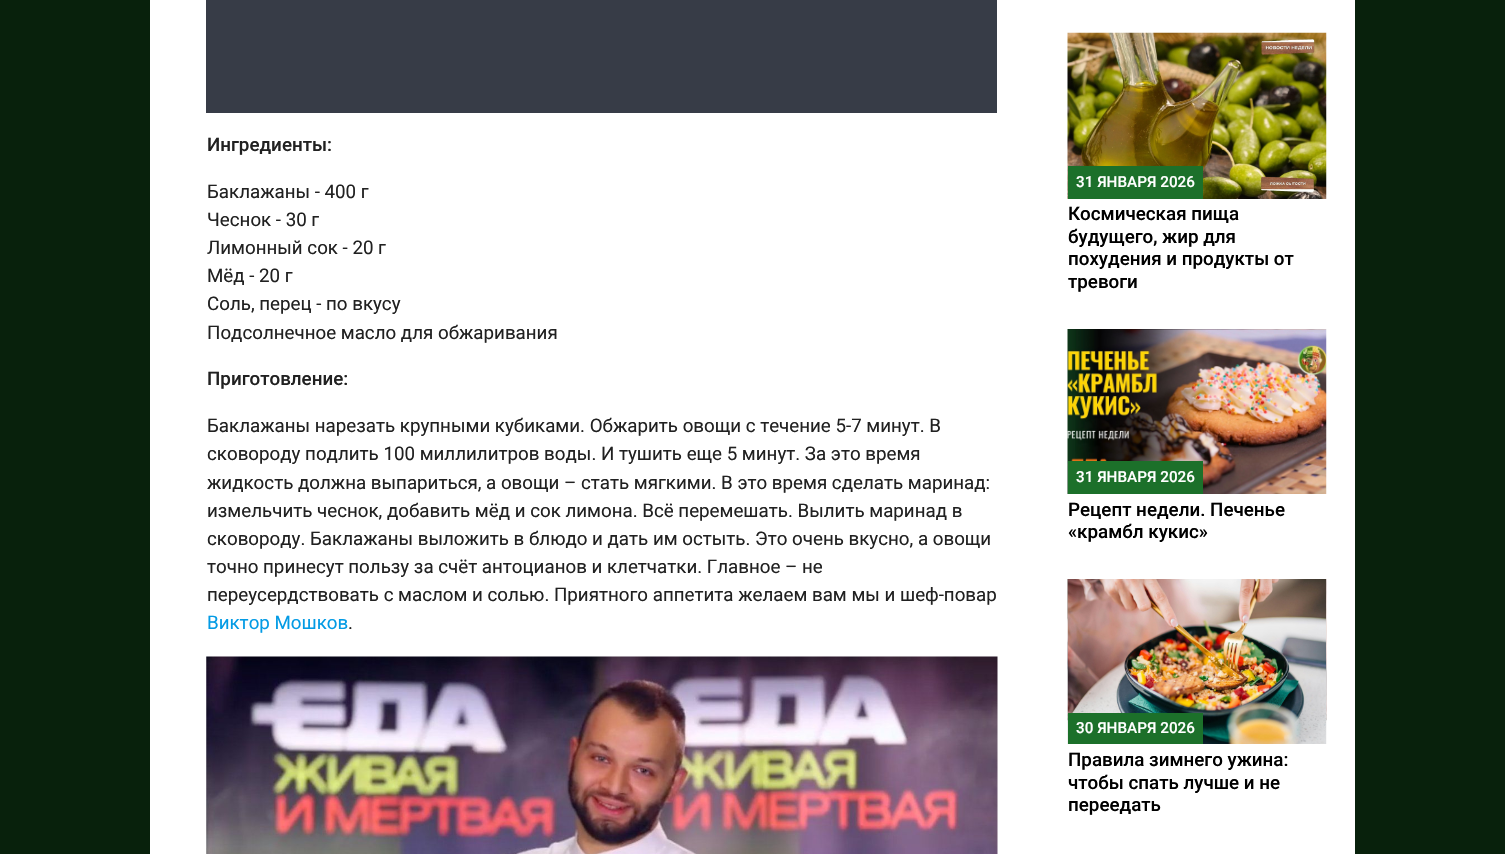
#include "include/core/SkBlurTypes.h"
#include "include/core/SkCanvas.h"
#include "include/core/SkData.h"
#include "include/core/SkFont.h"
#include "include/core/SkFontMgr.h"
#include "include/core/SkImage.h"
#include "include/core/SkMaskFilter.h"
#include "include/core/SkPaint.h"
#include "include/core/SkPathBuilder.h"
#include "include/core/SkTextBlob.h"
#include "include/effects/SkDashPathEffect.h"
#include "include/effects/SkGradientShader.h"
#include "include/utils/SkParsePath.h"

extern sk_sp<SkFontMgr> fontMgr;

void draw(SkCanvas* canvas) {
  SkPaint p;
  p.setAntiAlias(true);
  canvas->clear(SkColorSetRGB(8, 33, 12));
  p.setColor(SK_ColorWHITE);
  canvas->drawRect(SkRect::MakeLTRB(150, 0, 1355, 854), p);
  p.setColor(SkColorSetRGB(55, 60, 71));
  canvas->drawRect(SkRect::MakeLTRB(206, 0, 997, 113), p);
  canvas->drawImageRect(SkImages::DeferredFromEncodedData(SkData::MakeFromFileName("images/1.png")), SkRect::MakeLTRB(206, 656, 998, 854), SkSamplingOptions());
  canvas->drawImageRect(SkImages::DeferredFromEncodedData(SkData::MakeFromFileName("images/2.png")), SkRect::MakeLTRB(1067, 32, 1327, 199), SkSamplingOptions());
  p.setColor(SkColorSetRGB(28, 112, 42));
  canvas->drawRect(SkRect::MakeLTRB(1068, 166, 1203, 199), p);
  canvas->drawImageRect(SkImages::DeferredFromEncodedData(SkData::MakeFromFileName("images/3.png")), SkRect::MakeLTRB(1067, 329, 1327, 494), SkSamplingOptions());
  canvas->drawRect(SkRect::MakeLTRB(1068, 461, 1203, 494), p);
  canvas->drawImageRect(SkImages::DeferredFromEncodedData(SkData::MakeFromFileName("images/4.png")), SkRect::MakeLTRB(1067, 579, 1327, 744), SkSamplingOptions());
  canvas->drawRect(SkRect::MakeLTRB(1068, 713, 1203, 744), p);
  SkFont font1(fontMgr->matchFamilyStyle("Roboto", SkFontStyle(500, SkFontStyle::kNormal_Width, SkFontStyle::kUpright_Slant)), 18.75f);
  font1.setSubpixel(true);
  p.setColor(SkColorSetRGB(33, 33, 33));
  canvas->drawString("Ингредиенты:", 207, 151, font1, p);
  SkFont font2(fontMgr->matchFamilyStyle("Roboto", SkFontStyle::Normal()), 18.75f);
  font2.setSubpixel(true);
  canvas->drawString("Баклажаны - 400 г", 207, 198, font2, p);
  canvas->drawString("Чеснок - 30 г", 207, 226, font2, p);
  canvas->drawString("Лимонный сок - 20 г", 207, 254, font2, p);
  canvas->drawString("Мёд - 20 г", 207, 282, font2, p);
  canvas->drawString("Соль, перец - по вкусу", 207, 310, font2, p);
  canvas->drawString("Подсолнечное масло для обжаривания", 207, 339, font2, p);
  canvas->drawString("Приготовление:", 207, 385, font1, p);
  canvas->drawString("Баклажаны нарезать крупными кубиками. Обжарить овощи с течение 5-7 минут. В", 207, 432, font2, p);
  canvas->drawString("сковороду подлить 100 миллилитров воды. И тушить еще 5 минут. За это время", 207, 460, font2, p);
  canvas->drawString("жидкость должна выпариться, а овощи – стать мягкими. В это время сделать маринад:", 207, 489, font2, p);
  canvas->drawString("измельчить чеснок, добавить мёд и сок лимона. Всё перемешать. Вылить маринад в", 207, 517, font2, p);
  canvas->drawString("сковороду. Баклажаны выложить в блюдо и дать им остыть. Это очень вкусно, а овощи", 207, 545, font2, p);
  canvas->drawString("точно принесут пользу за счёт антоцианов и клетчатки. Главное – не", 207, 573, font2, p);
  canvas->drawString("переусердствовать с маслом и солью. Приятного аппетита желаем вам мы и шеф-повар", 207, 601, font2, p);
  p.setColor(SkColorSetRGB(3, 155, 229));
  canvas->drawString("Виктор Мошков", 207, 629, font2, p);
  p.setColor(SkColorSetRGB(33, 33, 33));
  canvas->drawString(".", 348, 629, font2, p);
  SkFont font3(fontMgr->matchFamilyStyle("Roboto", SkFontStyle(500, SkFontStyle::kNormal_Width, SkFontStyle::kUpright_Slant)), 15.25f);
  font3.setSubpixel(true);
  p.setColor(SK_ColorWHITE);
  canvas->drawString("31 ЯНВАРЯ 2026", 1076, 187, font3, p);
  p.setColor(SK_ColorBLACK);
  canvas->drawString("Космическая пища", 1068, 220, font1, p);
  canvas->drawString("будущего, жир для", 1068, 243, font1, p);
  canvas->drawString("похудения и продукты от", 1068, 265, font1, p);
  canvas->drawString("тревоги", 1068, 288, font1, p);
  p.setColor(SK_ColorWHITE);
  canvas->drawString("31 ЯНВАРЯ 2026", 1076, 482, font3, p);
  p.setColor(SK_ColorBLACK);
  canvas->drawString("Рецепт недели. Печенье", 1068, 516, font1, p);
  canvas->drawString("«крамбл кукис»", 1068, 538, font1, p);
  p.setColor(SK_ColorWHITE);
  canvas->drawString("30 ЯНВАРЯ 2026", 1076, 733, font3, p);
  p.setColor(SK_ColorBLACK);
  canvas->drawString("Правила зимнего ужина:", 1068, 766, font1, p);
  canvas->drawString("чтобы спать лучше и не", 1068, 789, font1, p);
  canvas->drawString("переедать", 1068, 811, font1, p);
}
